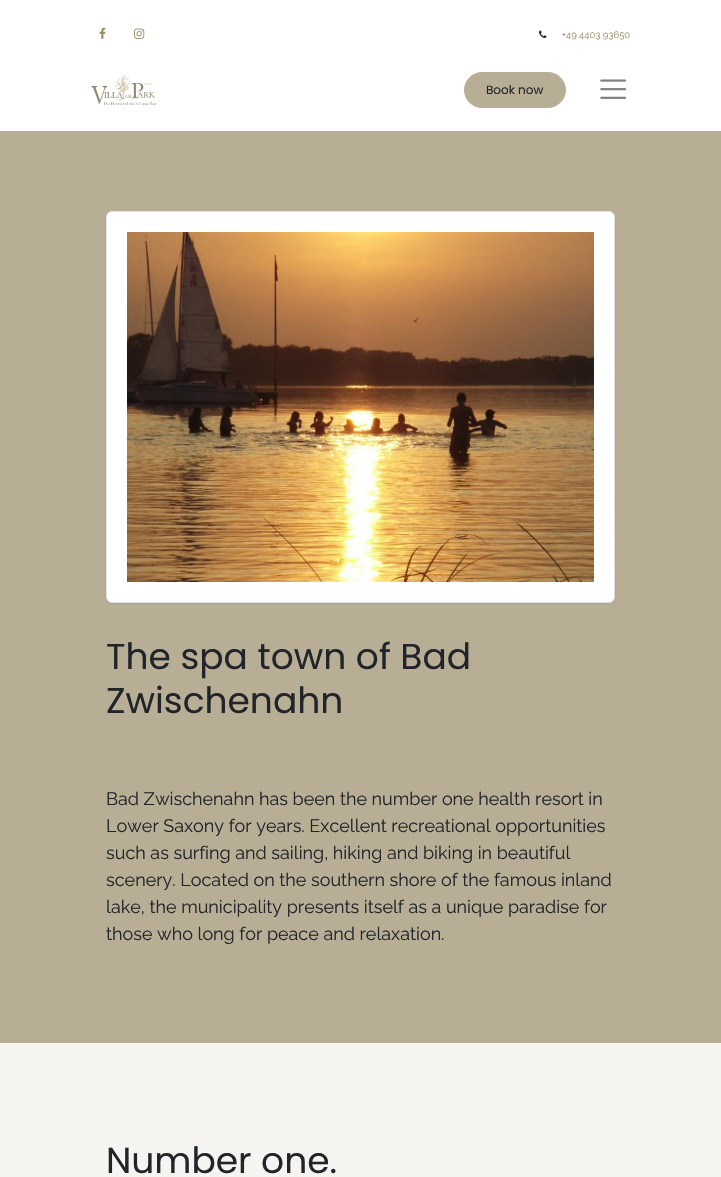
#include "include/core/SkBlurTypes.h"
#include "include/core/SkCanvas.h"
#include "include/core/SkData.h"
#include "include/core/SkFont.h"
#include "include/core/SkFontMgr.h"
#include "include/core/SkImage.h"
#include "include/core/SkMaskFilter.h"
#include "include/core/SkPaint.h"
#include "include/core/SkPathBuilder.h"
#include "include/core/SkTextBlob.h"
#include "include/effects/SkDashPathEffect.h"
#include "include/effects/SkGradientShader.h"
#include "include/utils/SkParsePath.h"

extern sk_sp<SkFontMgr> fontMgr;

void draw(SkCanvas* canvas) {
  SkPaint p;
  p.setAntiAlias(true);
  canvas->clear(SK_ColorWHITE);
  canvas->drawImageRect(SkImages::DeferredFromEncodedData(SkData::MakeFromFileName("images/1.png")), SkRect::MakeLTRB(99, 27, 106, 39), SkSamplingOptions());
  canvas->drawImageRect(SkImages::DeferredFromEncodedData(SkData::MakeFromFileName("images/2.png")), SkRect::MakeLTRB(134, 28, 145, 39), SkSamplingOptions());
  canvas->drawImageRect(SkImages::DeferredFromEncodedData(SkData::MakeFromFileName("images/3.png")), SkRect::MakeLTRB(539, 30, 547, 38), SkSamplingOptions());
  canvas->drawImageRect(SkImages::DeferredFromEncodedData(SkData::MakeFromFileName("images/4.png")), SkRect::MakeLTRB(91, 74, 157, 105), SkSamplingOptions());
  p.setColor(SkColorSetRGB(184, 174, 149));
  canvas->drawRoundRect(SkRect::MakeLTRB(464.5f, 72.5f, 565.5f, 107.5f), 17.5f, 17.5f, p);
  p.setStyle(SkPaint::kStroke_Style);
  p.setStrokeWidth(1);
  canvas->drawRoundRect(SkRect::MakeLTRB(464.5f, 72.5f, 565.5f, 107.5f), 17.5f, 17.5f, p);
  canvas->drawImageRect(SkImages::DeferredFromEncodedData(SkData::MakeFromFileName("images/5.png")), SkRect::MakeLTRB(600, 79, 627, 99), SkSamplingOptions());
  p.setStyle(SkPaint::kFill_Style);
  canvas->drawRect(SkRect::MakeLTRB(0, 131, 721, 1043), p);
  p.setColor(SkColorSetARGB(18, 0, 0, 0));
  p.setMaskFilter(SkMaskFilter::MakeBlur(kNormal_SkBlurStyle, 1));
  canvas->drawRoundRect(SkRect::MakeLTRB(106, 212, 615, 604), 6, 6, p);
  p.setMaskFilter(nullptr);
  p.setColor(SK_ColorWHITE);
  canvas->drawRoundRect(SkRect::MakeLTRB(106.5f, 211.5f, 614.5f, 602.5f), 5.5f, 5.5f, p);
  p.setStyle(SkPaint::kStroke_Style);
  p.setColor(SkColorSetRGB(222, 226, 230));
  canvas->drawRoundRect(SkRect::MakeLTRB(106.5f, 211.5f, 614.5f, 602.5f), 5.5f, 5.5f, p);
  canvas->drawImageRect(SkImages::DeferredFromEncodedData(SkData::MakeFromFileName("images/6.png")), SkRect::MakeLTRB(127, 232, 594, 582), SkSamplingOptions());
  p.setStyle(SkPaint::kFill_Style);
  p.setColor(SkColorSetRGB(246, 244, 241));
  canvas->drawRect(SkRect::MakeLTRB(0, 1043, 721, 1177), p);
  SkFont font1(fontMgr->matchFamilyStyle("Raleway", SkFontStyle::Normal()), 9.5f);
  font1.setSubpixel(true);
  p.setColor(SkColorSetRGB(153, 139, 103));
  canvas->drawString("+49 4403 93650", 562, 38, font1, p);
  SkFont font2(fontMgr->matchFamilyStyle("Poppins", SkFontStyle::Normal()), 12);
  font2.setSubpixel(true);
  p.setColor(SkColorSetRGB(33, 37, 41));
  canvas->drawString("Book now", 486, 94, font2, p);
  SkFont font3(fontMgr->matchFamilyStyle("Poppins", SkFontStyle::Normal()), 36);
  font3.setSubpixel(true);
  canvas->drawString("The spa town of Bad", 106, 669, font3, p);
  canvas->drawString("Zwischenahn", 106, 713, font3, p);
  SkFont font4(fontMgr->matchFamilyStyle("Raleway", SkFontStyle::Normal()), 18);
  font4.setSubpixel(true);
  canvas->drawString("Bad Zwischenahn has been the number one health resort in", 106, 805, font4, p);
  canvas->drawString("Lower Saxony for years. Excellent recreational opportunities", 106, 832, font4, p);
  canvas->drawString("such as surfing and sailing, hiking and biking in beautiful", 106, 859, font4, p);
  canvas->drawString("scenery. Located on the southern shore of the famous inland", 106, 886, font4, p);
  canvas->drawString("lake, the municipality presents itself as a unique paradise for", 106, 913, font4, p);
  canvas->drawString("those who long for peace and relaxation.", 106, 940, font4, p);
  canvas->drawString("Number one.", 106, 1173, font3, p);
}
